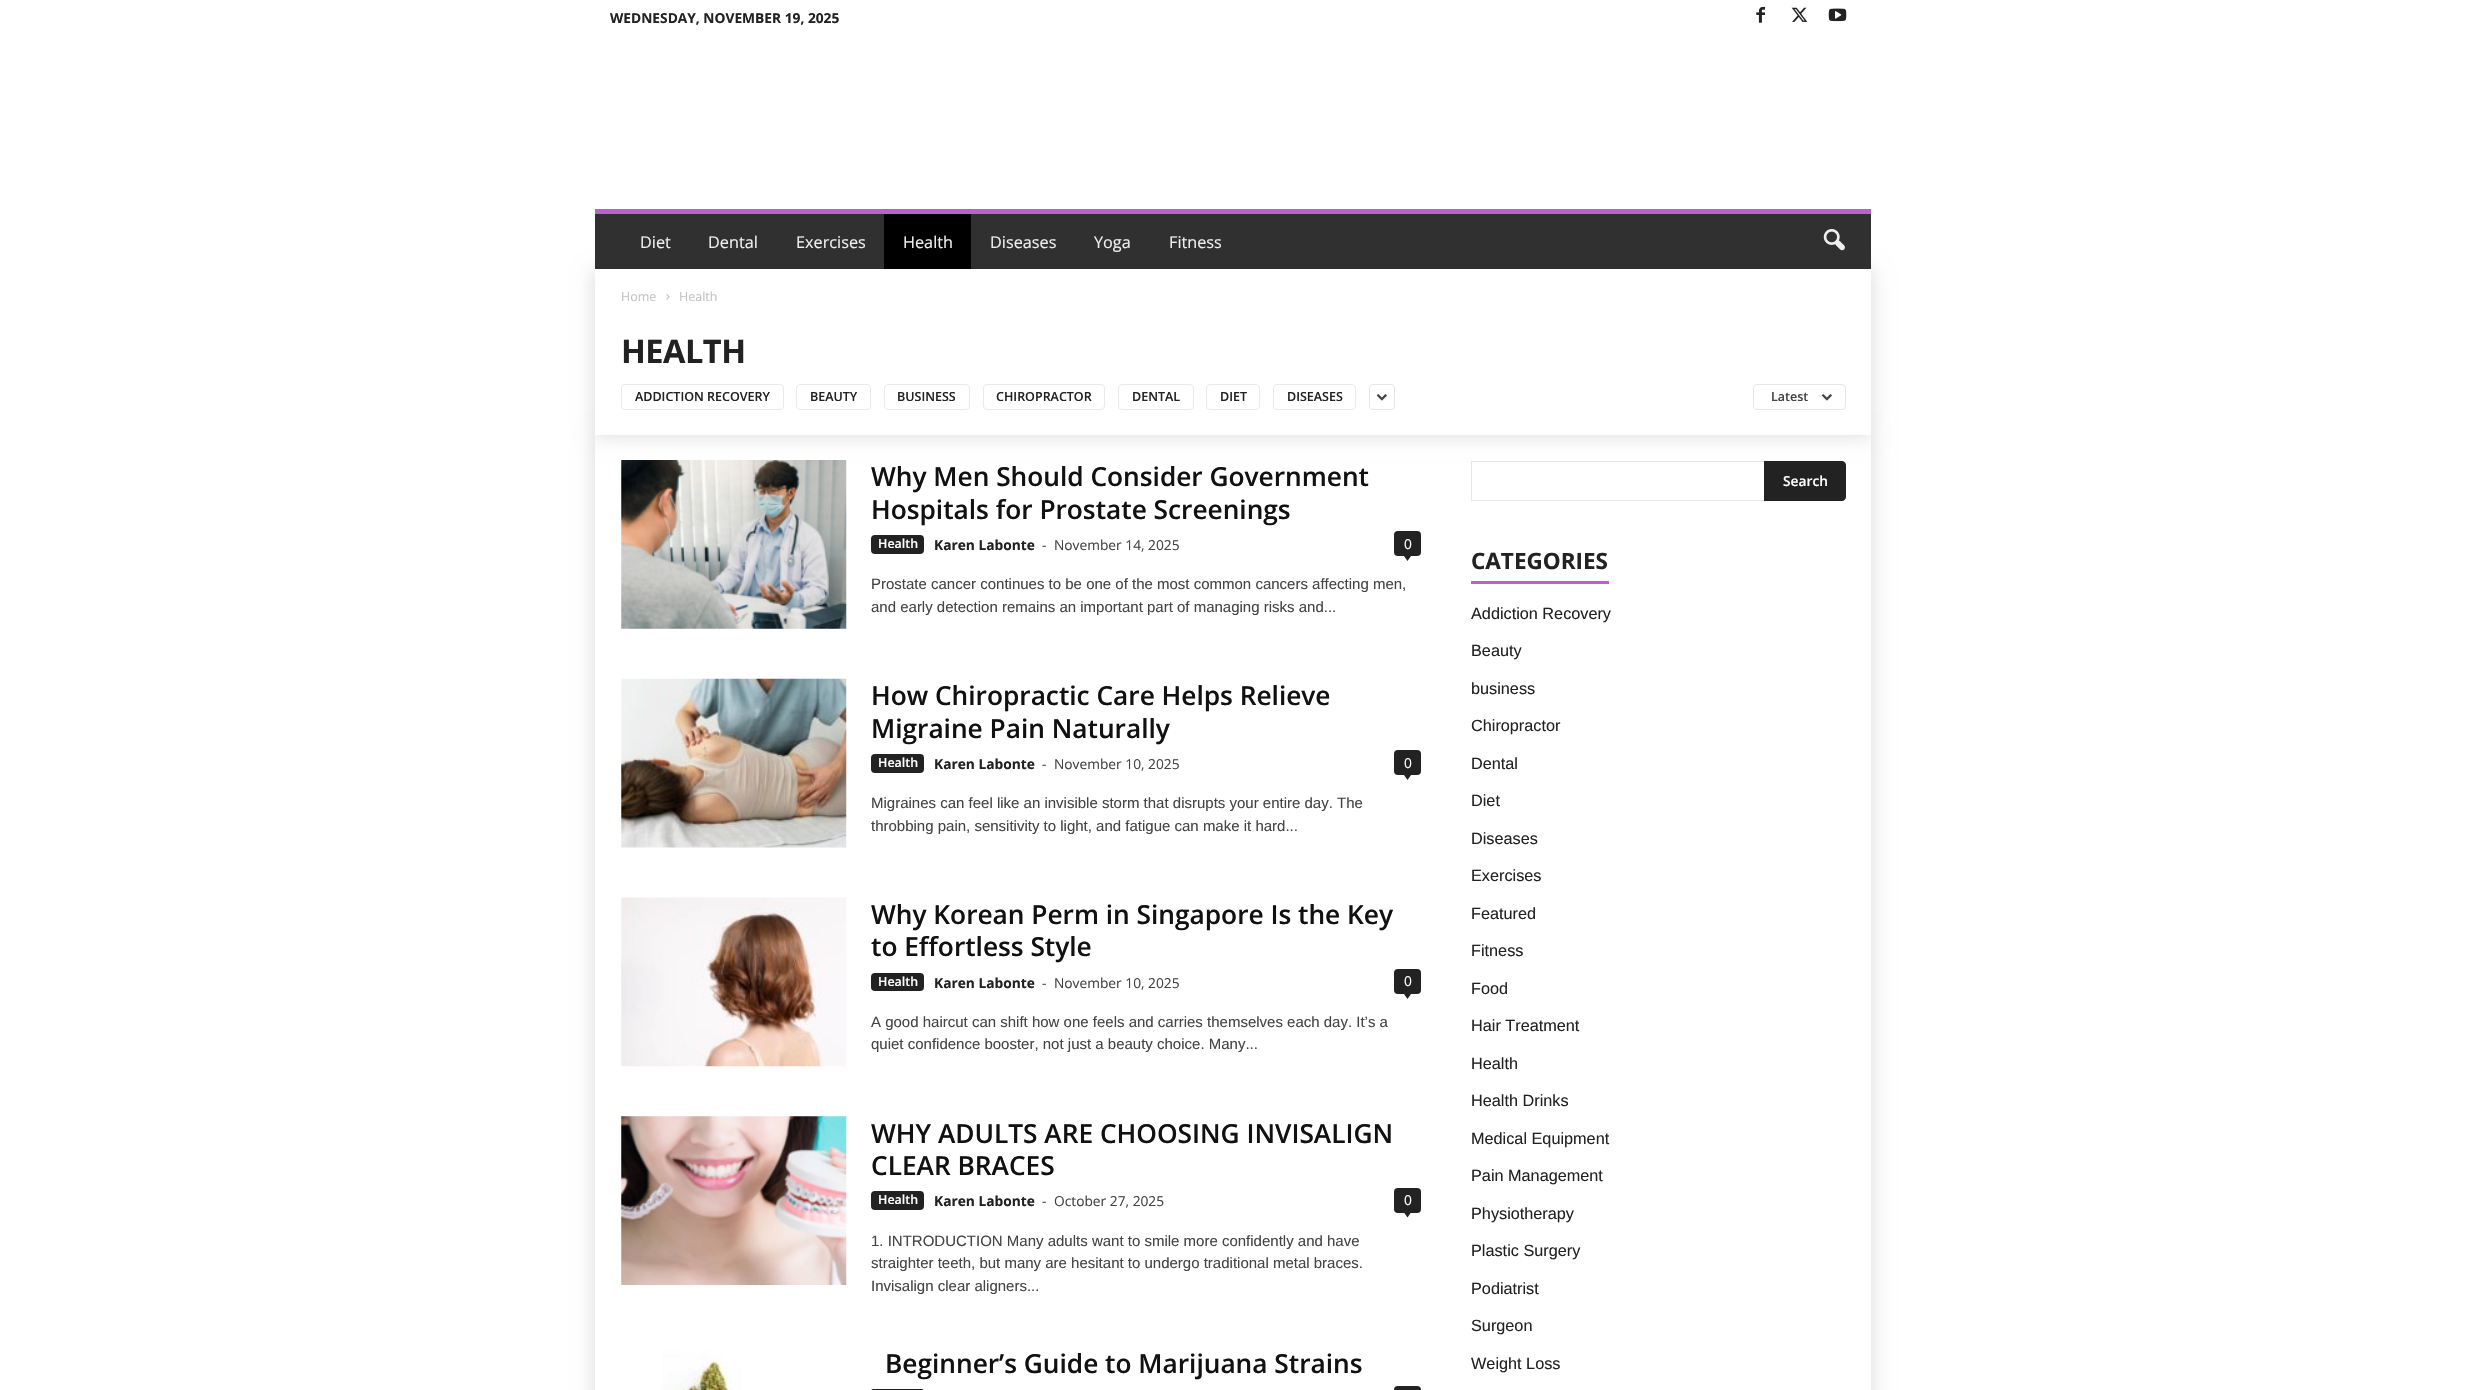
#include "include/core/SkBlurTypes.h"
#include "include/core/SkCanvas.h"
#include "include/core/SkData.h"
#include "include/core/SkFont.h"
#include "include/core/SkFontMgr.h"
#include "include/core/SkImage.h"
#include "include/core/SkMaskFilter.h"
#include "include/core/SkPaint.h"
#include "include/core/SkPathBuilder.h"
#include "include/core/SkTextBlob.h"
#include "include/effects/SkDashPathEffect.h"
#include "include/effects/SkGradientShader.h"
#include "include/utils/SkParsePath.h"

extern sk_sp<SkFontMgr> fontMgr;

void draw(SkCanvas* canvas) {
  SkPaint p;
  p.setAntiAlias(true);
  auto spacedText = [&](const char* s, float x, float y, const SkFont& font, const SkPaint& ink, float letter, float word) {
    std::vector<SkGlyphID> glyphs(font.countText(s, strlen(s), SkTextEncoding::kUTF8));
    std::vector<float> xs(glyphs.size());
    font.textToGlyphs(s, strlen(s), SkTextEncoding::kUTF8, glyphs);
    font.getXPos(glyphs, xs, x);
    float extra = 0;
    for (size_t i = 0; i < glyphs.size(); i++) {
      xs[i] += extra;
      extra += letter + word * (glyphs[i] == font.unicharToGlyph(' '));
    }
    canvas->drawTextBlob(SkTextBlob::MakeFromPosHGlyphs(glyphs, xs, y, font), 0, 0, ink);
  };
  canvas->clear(SK_ColorWHITE);
  canvas->drawImageRect(SkImages::DeferredFromEncodedData(SkData::MakeFromFileName("images/1.png")), SkRect::MakeLTRB(1756, 6, 1765, 23), SkSamplingOptions());
  canvas->drawImageRect(SkImages::DeferredFromEncodedData(SkData::MakeFromFileName("images/2.png")), SkRect::MakeLTRB(1791, 7, 1808, 22), SkSamplingOptions());
  canvas->drawImageRect(SkImages::DeferredFromEncodedData(SkData::MakeFromFileName("images/3.png")), SkRect::MakeLTRB(1828, 8, 1847, 22), SkSamplingOptions());
  canvas->save();
  canvas->clipPath(SkPathBuilder(SkPathFillType::kEvenOdd).moveTo(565, 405).lineTo(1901, 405).lineTo(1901, 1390).lineTo(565, 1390).close().moveTo(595, 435).lineTo(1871, 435).lineTo(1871, 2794).lineTo(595, 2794).close().detach(), true);
  p.setColor(SkColorSetARGB(38, 0, 0, 0));
  p.setMaskFilter(SkMaskFilter::MakeBlur(kNormal_SkBlurStyle, 9.5f));
  canvas->drawRect(SkRect::MakeLTRB(595, 435, 1871, 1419), p);
  p.setMaskFilter(nullptr);
  canvas->restore();
  canvas->drawImageRect(SkImages::DeferredFromEncodedData(SkData::MakeFromFileName("images/7.png")), SkRect::MakeLTRB(621, 460, 847, 629), SkSamplingOptions());
  p.setColor(SkColorSetRGB(230, 230, 230));
  canvas->drawRect(SkRect::MakeLTRB(1471, 461, 1764, 462), p);
  canvas->drawRect(SkRect::MakeLTRB(1471, 500, 1764, 501), p);
  canvas->drawRect(SkRect::MakeLTRB(1471, 461, 1472, 501), p);
  p.setColor(SkColorSetRGB(34, 34, 34));
  canvas->drawPath(SkPathBuilder().moveTo(1764, 461).lineTo(1842, 461).cubicTo(1844, 461, 1846, 463, 1846, 465).lineTo(1846, 497).cubicTo(1846, 499, 1844, 501, 1842, 501).lineTo(1764, 501).close().detach(), p);
  p.setColor(SkColorSetARGB(38, 0, 0, 0));
  p.setMaskFilter(SkMaskFilter::MakeBlur(kNormal_SkBlurStyle, 9.5f));
  canvas->drawRect(SkRect::MakeLTRB(595, 269, 1871, 435), p);
  p.setMaskFilter(nullptr);
  p.setColor(SkColorSetRGB(48, 48, 48));
  canvas->drawRect(SkRect::MakeLTRB(595, 214, 1871, 269), p);
  p.setColor(SkColorSetRGB(189, 94, 209));
  canvas->drawRect(SkRect::MakeLTRB(595, 209, 1871, 214), p);
  p.setColor(SK_ColorBLACK);
  canvas->drawRect(SkRect::MakeLTRB(884, 214, 971, 269), p);
  canvas->drawImageRect(SkImages::DeferredFromEncodedData(SkData::MakeFromFileName("images/4.png")), SkRect::MakeLTRB(1823, 229, 1845, 251), SkSamplingOptions());
  p.setColor(SK_ColorWHITE);
  canvas->drawRect(SkRect::MakeLTRB(595, 269, 1871, 435), p);
  canvas->drawImageRect(SkImages::DeferredFromEncodedData(SkData::MakeFromFileName("images/5.png")), SkRect::MakeLTRB(666, 294, 670, 300), SkSamplingOptions());
  p.setStyle(SkPaint::kStroke_Style);
  p.setStrokeWidth(1);
  p.setColor(SkColorSetRGB(234, 234, 234));
  canvas->drawRoundRect(SkRect::MakeLTRB(621.5f, 384.5f, 783.5f, 409.5f), 3.5f, 3.5f, p);
  canvas->drawRoundRect(SkRect::MakeLTRB(796.5f, 384.5f, 870.5f, 409.5f), 3.5f, 3.5f, p);
  canvas->drawRoundRect(SkRect::MakeLTRB(884.5f, 384.5f, 969.5f, 409.5f), 3.5f, 3.5f, p);
  canvas->drawRoundRect(SkRect::MakeLTRB(983.5f, 384.5f, 1104.5f, 409.5f), 3.5f, 3.5f, p);
  canvas->drawRoundRect(SkRect::MakeLTRB(1118.5f, 384.5f, 1193.5f, 409.5f), 3.5f, 3.5f, p);
  canvas->drawRoundRect(SkRect::MakeLTRB(1206.5f, 384.5f, 1259.5f, 409.5f), 3.5f, 3.5f, p);
  canvas->drawRoundRect(SkRect::MakeLTRB(1273.5f, 384.5f, 1355.5f, 409.5f), 3.5f, 3.5f, p);
  p.setColor(SkColorSetRGB(230, 230, 230));
  canvas->drawRoundRect(SkRect::MakeLTRB(1369.5f, 384.5f, 1394.5f, 409.5f), 3.5f, 3.5f, p);
  canvas->drawImageRect(SkImages::DeferredFromEncodedData(SkData::MakeFromFileName("images/6.png")), SkRect::MakeLTRB(1376, 394, 1387, 401), SkSamplingOptions());
  canvas->drawRoundRect(SkRect::MakeLTRB(1753.5f, 384.5f, 1845.5f, 409.5f), 3.5f, 3.5f, p);
  canvas->drawImageRect(SkImages::DeferredFromEncodedData(SkData::MakeFromFileName("images/6.png")), SkRect::MakeLTRB(1821, 394, 1832, 401), SkSamplingOptions());
  p.setStyle(SkPaint::kFill_Style);
  p.setColor(SkColorSetRGB(34, 34, 34));
  canvas->drawRoundRect(SkRect::MakeLTRB(871, 535, 924, 554), 4, 4, p);
  canvas->drawRoundRect(SkRect::MakeLTRB(1394, 531, 1421, 556), 4, 4, p);
  canvas->drawPath(SkPathBuilder().moveTo(1404, 556).lineTo(1411, 556).lineTo(1407.5f, 561).close().detach(), p);
  canvas->drawImageRect(SkImages::DeferredFromEncodedData(SkData::MakeFromFileName("images/8.png")), SkRect::MakeLTRB(621, 678, 847, 848), SkSamplingOptions());
  canvas->drawRoundRect(SkRect::MakeLTRB(871, 754, 924, 773), 4, 4, p);
  canvas->drawRoundRect(SkRect::MakeLTRB(1394, 750, 1421, 775), 4, 4, p);
  canvas->drawPath(SkPathBuilder().moveTo(1404, 775).lineTo(1411, 775).lineTo(1407.5f, 780).close().detach(), p);
  canvas->drawImageRect(SkImages::DeferredFromEncodedData(SkData::MakeFromFileName("images/9.png")), SkRect::MakeLTRB(621, 897, 846, 1067), SkSamplingOptions());
  canvas->drawRoundRect(SkRect::MakeLTRB(871, 973, 924, 991), 4, 4, p);
  canvas->drawRoundRect(SkRect::MakeLTRB(1394, 969, 1421, 994), 4, 4, p);
  canvas->drawPath(SkPathBuilder().moveTo(1404, 994).lineTo(1411, 994).lineTo(1407.5f, 999).close().detach(), p);
  canvas->drawImageRect(SkImages::DeferredFromEncodedData(SkData::MakeFromFileName("images/10.png")), SkRect::MakeLTRB(621, 1116, 847, 1285), SkSamplingOptions());
  canvas->drawRoundRect(SkRect::MakeLTRB(871, 1191, 924, 1210), 4, 4, p);
  canvas->drawRoundRect(SkRect::MakeLTRB(1394, 1188, 1421, 1213), 4, 4, p);
  canvas->drawPath(SkPathBuilder().moveTo(1404, 1212.5f).lineTo(1411, 1212.5f).lineTo(1407.5f, 1217.5f).close().detach(), p);
  canvas->drawImageRect(SkImages::DeferredFromEncodedData(SkData::MakeFromFileName("images/11.png")), SkRect::MakeLTRB(662, 1348, 741, 1390), SkSamplingOptions());
  canvas->drawRoundRect(SkRect::MakeLTRB(871, 1389, 924, 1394), 4, 4, p);
  canvas->drawRoundRect(SkRect::MakeLTRB(1394, 1386, 1421, 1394), 4, 4, p);
  p.setColor(SkColorSetRGB(189, 94, 209));
  canvas->drawRect(SkRect::MakeLTRB(1471, 581, 1609, 584), p);
  SkFont font1(fontMgr->matchFamilyStyle("Open Sans", SkFontStyle::Bold()), 13.75f);
  font1.setSubpixel(true);
  p.setColor(SkColorSetRGB(34, 34, 34));
  canvas->drawString("WEDNESDAY, NOVEMBER 19, 2025", 610, 23, font1, p);
  SkFont font2(fontMgr->matchFamilyStyle("Open Sans", SkFontStyle::Normal()), 16.25f);
  font2.setSubpixel(true);
  p.setColor(SkColorSetRGB(239, 239, 239));
  canvas->drawString("Diet", 640, 248, font2, p);
  canvas->drawString("Dental", 708, 248, font2, p);
  canvas->drawString("Exercises", 796, 248, font2, p);
  canvas->drawString("Health", 903, 248, font2, p);
  canvas->drawString("Diseases", 990, 248, font2, p);
  canvas->drawString("Yoga", 1094, 248, font2, p);
  canvas->drawString("Fitness", 1169, 248, font2, p);
  SkFont font3(fontMgr->matchFamilyStyle("Open Sans", SkFontStyle::Normal()), 12.5f);
  font3.setSubpixel(true);
  p.setColor(SkColorSetRGB(195, 195, 195));
  canvas->drawString("Home", 621, 301, font3, p);
  canvas->drawString("Health", 679, 301, font3, p);
  SkFont font4(fontMgr->matchFamilyStyle("Open Sans", SkFontStyle::Bold()), 32.5f);
  font4.setSubpixel(true);
  p.setColor(SkColorSetRGB(34, 34, 34));
  spacedText("HEALTH", 621, 363, font4, p, -0.5f, 0);
  SkFont font5(fontMgr->matchFamilyStyle("Open Sans", SkFontStyle(600, SkFontStyle::kNormal_Width, SkFontStyle::kUpright_Slant)), 12.5f);
  font5.setSubpixel(true);
  canvas->drawString("ADDICTION RECOVERY", 635, 401, font5, p);
  canvas->drawString("BEAUTY", 810, 401, font5, p);
  canvas->drawString("BUSINESS", 897, 401, font5, p);
  canvas->drawString("CHIROPRACTOR", 996, 401, font5, p);
  canvas->drawString("DENTAL", 1132, 401, font5, p);
  canvas->drawString("DIET", 1220, 401, font5, p);
  canvas->drawString("DISEASES", 1287, 401, font5, p);
  p.setColor(SkColorSetRGB(68, 68, 68));
  canvas->drawString("Latest", 1771, 401, font5, p);
  SkFont font6(fontMgr->matchFamilyStyle("Open Sans", SkFontStyle(600, SkFontStyle::kNormal_Width, SkFontStyle::kUpright_Slant)), 26.25f);
  font6.setSubpixel(true);
  p.setColor(SkColorSetRGB(17, 17, 17));
  canvas->drawString("Why Men Should Consider Government", 871, 486, font6, p);
  canvas->drawString("Hospitals for Prostate Screenings", 871, 519, font6, p);
  p.setColor(SK_ColorWHITE);
  canvas->drawString("Health", 878, 548, font5, p);
  p.setColor(SkColorSetRGB(34, 34, 34));
  canvas->drawString("Karen Labonte", 934, 550, font1, p);
  SkFont font7(fontMgr->matchFamilyStyle("Open Sans", SkFontStyle::Normal()), 13.75f);
  font7.setSubpixel(true);
  p.setColor(SkColorSetRGB(68, 68, 68));
  canvas->drawString("-", 1042, 550, font7, p);
  canvas->drawString("November 14, 2025", 1054, 550, font7, p);
  p.setColor(SK_ColorWHITE);
  canvas->drawString("0", 1404, 549, font7, p);
  SkFont font8(fontMgr->matchFamilyStyle("Liberation Sans", SkFontStyle::Normal()), 15);
  font8.setSubpixel(true);
  p.setColor(SkColorSetRGB(68, 68, 68));
  canvas->drawString("Prostate cancer continues to be one of the most common cancers affecting men,", 871, 589, font8, p);
  canvas->drawString("and early detection remains an important part of managing risks and...", 871, 612, font8, p);
  p.setColor(SkColorSetRGB(17, 17, 17));
  canvas->drawString("How Chiropractic Care Helps Relieve", 871, 705, font6, p);
  canvas->drawString("Migraine Pain Naturally", 871, 738, font6, p);
  p.setColor(SK_ColorWHITE);
  canvas->drawString("Health", 878, 767, font5, p);
  p.setColor(SkColorSetRGB(34, 34, 34));
  canvas->drawString("Karen Labonte", 934, 769, font1, p);
  p.setColor(SkColorSetRGB(68, 68, 68));
  canvas->drawString("-", 1042, 769, font7, p);
  canvas->drawString("November 10, 2025", 1054, 769, font7, p);
  p.setColor(SK_ColorWHITE);
  canvas->drawString("0", 1404, 768, font7, p);
  p.setColor(SkColorSetRGB(68, 68, 68));
  canvas->drawString("Migraines can feel like an invisible storm that disrupts your entire day. The", 871, 808, font8, p);
  canvas->drawString("throbbing pain, sensitivity to light, and fatigue can make it hard...", 871, 831, font8, p);
  p.setColor(SkColorSetRGB(17, 17, 17));
  canvas->drawString("Why Korean Perm in Singapore Is the Key", 871, 924, font6, p);
  canvas->drawString("to Effortless Style", 871, 956, font6, p);
  p.setColor(SK_ColorWHITE);
  canvas->drawString("Health", 878, 986, font5, p);
  p.setColor(SkColorSetRGB(34, 34, 34));
  canvas->drawString("Karen Labonte", 934, 988, font1, p);
  p.setColor(SkColorSetRGB(68, 68, 68));
  canvas->drawString("-", 1042, 988, font7, p);
  canvas->drawString("November 10, 2025", 1054, 988, font7, p);
  p.setColor(SK_ColorWHITE);
  canvas->drawString("0", 1404, 986, font7, p);
  p.setColor(SkColorSetRGB(68, 68, 68));
  canvas->drawString("A good haircut can shift how one feels and carries themselves each day. It’s a", 871, 1027, font8, p);
  canvas->drawString("quiet confidence booster, not just a beauty choice. Many...", 871, 1049, font8, p);
  p.setColor(SkColorSetRGB(17, 17, 17));
  canvas->drawString("WHY ADULTS ARE CHOOSING INVISALIGN", 871, 1143, font6, p);
  canvas->drawString("CLEAR BRACES", 871, 1175, font6, p);
  p.setColor(SK_ColorWHITE);
  canvas->drawString("Health", 878, 1204, font5, p);
  p.setColor(SkColorSetRGB(34, 34, 34));
  canvas->drawString("Karen Labonte", 934, 1206, font1, p);
  p.setColor(SkColorSetRGB(68, 68, 68));
  canvas->drawString("-", 1042, 1206, font7, p);
  canvas->drawString("October 27, 2025", 1054, 1206, font7, p);
  p.setColor(SK_ColorWHITE);
  canvas->drawString("0", 1404, 1205, font7, p);
  p.setColor(SkColorSetRGB(68, 68, 68));
  canvas->drawString("1. INTRODUCTION Many adults want to smile more confidently and have", 871, 1246, font8, p);
  canvas->drawString("straighter teeth, but many are hesitant to undergo traditional metal braces.", 871, 1268, font8, p);
  canvas->drawString("Invisalign clear aligners...", 871, 1291, font8, p);
  p.setColor(SkColorSetRGB(17, 17, 17));
  canvas->drawString("Beginner’s Guide to Marijuana Strains", 885, 1373, font6, p);
  SkFont font9(fontMgr->matchFamilyStyle("Open Sans", SkFontStyle(600, SkFontStyle::kNormal_Width, SkFontStyle::kUpright_Slant)), 13.75f);
  font9.setSubpixel(true);
  p.setColor(SK_ColorWHITE);
  canvas->drawString("Search", 1783, 486, font9, p);
  SkFont font10(fontMgr->matchFamilyStyle("Open Sans", SkFontStyle::Bold()), 22.5f);
  font10.setSubpixel(true);
  p.setColor(SkColorSetRGB(34, 34, 34));
  canvas->drawString("CATEGORIES", 1471, 569, font10, p);
  SkFont font11(fontMgr->matchFamilyStyle("Liberation Sans", SkFontStyle::Normal()), 16.25f);
  font11.setSubpixel(true);
  canvas->drawString("Addiction Recovery", 1471, 619, font11, p);
  canvas->drawString("Beauty", 1471, 656, font11, p);
  canvas->drawString("business", 1471, 694, font11, p);
  canvas->drawString("Chiropractor", 1471, 731, font11, p);
  canvas->drawString("Dental", 1471, 769, font11, p);
  canvas->drawString("Diet", 1471, 806, font11, p);
  canvas->drawString("Diseases", 1471, 844, font11, p);
  canvas->drawString("Exercises", 1471, 881, font11, p);
  canvas->drawString("Featured", 1471, 919, font11, p);
  canvas->drawString("Fitness", 1471, 956, font11, p);
  canvas->drawString("Food", 1471, 994, font11, p);
  canvas->drawString("Hair Treatment", 1471, 1031, font11, p);
  canvas->drawString("Health", 1471, 1069, font11, p);
  canvas->drawString("Health Drinks", 1471, 1106, font11, p);
  canvas->drawString("Medical Equipment", 1471, 1144, font11, p);
  canvas->drawString("Pain Management", 1471, 1181, font11, p);
  canvas->drawString("Physiotherapy", 1471, 1219, font11, p);
  canvas->drawString("Plastic Surgery", 1471, 1256, font11, p);
  canvas->drawString("Podiatrist", 1471, 1294, font11, p);
  canvas->drawString("Surgeon", 1471, 1331, font11, p);
  canvas->drawString("Weight Loss", 1471, 1369, font11, p);
}
